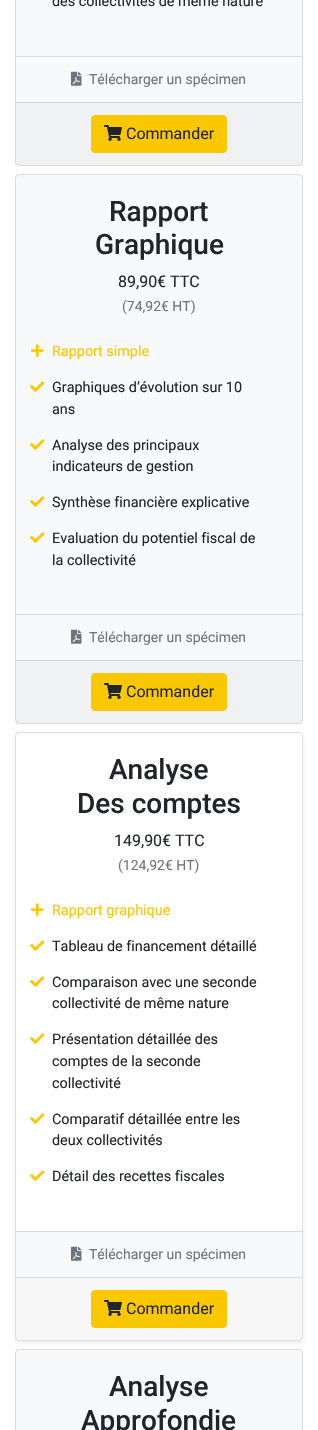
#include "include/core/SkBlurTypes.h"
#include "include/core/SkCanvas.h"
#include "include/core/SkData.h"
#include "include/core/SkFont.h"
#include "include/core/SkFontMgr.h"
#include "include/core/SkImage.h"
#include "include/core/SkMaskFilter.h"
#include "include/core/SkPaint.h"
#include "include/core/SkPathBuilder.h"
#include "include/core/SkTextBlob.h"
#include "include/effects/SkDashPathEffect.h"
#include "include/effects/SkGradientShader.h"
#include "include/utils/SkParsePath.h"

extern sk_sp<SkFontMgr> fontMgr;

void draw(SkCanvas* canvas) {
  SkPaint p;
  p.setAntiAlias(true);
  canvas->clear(SK_ColorWHITE);
  p.setColor(SkColorSetRGB(248, 249, 250));
  canvas->drawRoundRect(SkRect::MakeLTRB(15.5f, -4.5f, 302.5f, 165.5f), 3.5f, 3.5f, p);
  p.setStyle(SkPaint::kStroke_Style);
  p.setStrokeWidth(1);
  p.setColor(SkColorSetRGB(217, 218, 219));
  canvas->drawRoundRect(SkRect::MakeLTRB(15.5f, -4.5f, 302.5f, 165.5f), 3.5f, 3.5f, p);
  p.setStyle(SkPaint::kFill_Style);
  canvas->drawRect(SkRect::MakeLTRB(16, 56, 302, 57), p);
  canvas->drawImageRect(SkImages::DeferredFromEncodedData(SkData::MakeFromFileName("images/1.png")), SkRect::MakeLTRB(71, 71, 82, 86), SkSamplingOptions());
  p.setColor(SkColorSetARGB(8, 0, 0, 0));
  canvas->drawRect(SkRect::MakeLTRB(16, 103, 302, 165), p);
  p.setColor(SkColorSetRGB(210, 211, 212));
  canvas->drawRect(SkRect::MakeLTRB(16, 102, 302, 103), p);
  p.setColor(SkColorSetRGB(250, 200, 0));
  canvas->drawRoundRect(SkRect::MakeLTRB(91.5f, 115.5f, 226.5f, 152.5f), 3.5f, 3.5f, p);
  p.setStyle(SkPaint::kStroke_Style);
  canvas->drawRoundRect(SkRect::MakeLTRB(91.5f, 115.5f, 226.5f, 152.5f), 3.5f, 3.5f, p);
  canvas->drawImageRect(SkImages::DeferredFromEncodedData(SkData::MakeFromFileName("images/2.png")), SkRect::MakeLTRB(104, 125, 122, 141), SkSamplingOptions());
  p.setStyle(SkPaint::kFill_Style);
  p.setColor(SkColorSetRGB(248, 249, 250));
  canvas->drawRoundRect(SkRect::MakeLTRB(15.5f, 174.5f, 302.5f, 723.5f), 3.5f, 3.5f, p);
  p.setStyle(SkPaint::kStroke_Style);
  p.setColor(SkColorSetRGB(217, 218, 219));
  canvas->drawRoundRect(SkRect::MakeLTRB(15.5f, 174.5f, 302.5f, 723.5f), 3.5f, 3.5f, p);
  canvas->drawImageRect(SkImages::DeferredFromEncodedData(SkData::MakeFromFileName("images/3.png")), SkRect::MakeLTRB(31, 344, 44, 357), SkSamplingOptions());
  canvas->drawImageRect(SkImages::DeferredFromEncodedData(SkData::MakeFromFileName("images/4.png")), SkRect::MakeLTRB(30, 381, 45, 392), SkSamplingOptions());
  canvas->drawImageRect(SkImages::DeferredFromEncodedData(SkData::MakeFromFileName("images/4.png")), SkRect::MakeLTRB(30, 439, 45, 450), SkSamplingOptions());
  canvas->drawImageRect(SkImages::DeferredFromEncodedData(SkData::MakeFromFileName("images/4.png")), SkRect::MakeLTRB(30, 496, 45, 507), SkSamplingOptions());
  canvas->drawImageRect(SkImages::DeferredFromEncodedData(SkData::MakeFromFileName("images/4.png")), SkRect::MakeLTRB(30, 532, 45, 543), SkSamplingOptions());
  p.setStyle(SkPaint::kFill_Style);
  canvas->drawRect(SkRect::MakeLTRB(16, 614, 302, 615), p);
  canvas->drawImageRect(SkImages::DeferredFromEncodedData(SkData::MakeFromFileName("images/1.png")), SkRect::MakeLTRB(71, 629, 82, 644), SkSamplingOptions());
  p.setColor(SkColorSetARGB(8, 0, 0, 0));
  canvas->drawRect(SkRect::MakeLTRB(16, 661, 302, 723), p);
  p.setColor(SkColorSetRGB(210, 211, 212));
  canvas->drawRect(SkRect::MakeLTRB(16, 660, 302, 661), p);
  p.setColor(SkColorSetRGB(250, 200, 0));
  canvas->drawRoundRect(SkRect::MakeLTRB(91.5f, 673.5f, 226.5f, 710.5f), 3.5f, 3.5f, p);
  p.setStyle(SkPaint::kStroke_Style);
  canvas->drawRoundRect(SkRect::MakeLTRB(91.5f, 673.5f, 226.5f, 710.5f), 3.5f, 3.5f, p);
  canvas->drawImageRect(SkImages::DeferredFromEncodedData(SkData::MakeFromFileName("images/2.png")), SkRect::MakeLTRB(104, 683, 122, 699), SkSamplingOptions());
  p.setStyle(SkPaint::kFill_Style);
  p.setColor(SkColorSetARGB(18, 0, 0, 0));
  p.setMaskFilter(SkMaskFilter::MakeBlur(kNormal_SkBlurStyle, 2));
  canvas->drawRoundRect(SkRect::MakeLTRB(15, 734, 303, 1343), 4, 4, p);
  p.setMaskFilter(nullptr);
  p.setColor(SK_ColorWHITE);
  canvas->drawRoundRect(SkRect::MakeLTRB(15.5f, 732.5f, 302.5f, 1340.5f), 3.5f, 3.5f, p);
  p.setStyle(SkPaint::kStroke_Style);
  p.setColor(SkColorSetRGB(223, 223, 223));
  canvas->drawRoundRect(SkRect::MakeLTRB(15.5f, 732.5f, 302.5f, 1340.5f), 3.5f, 3.5f, p);
  canvas->drawImageRect(SkImages::DeferredFromEncodedData(SkData::MakeFromFileName("images/5.png")), SkRect::MakeLTRB(31, 903, 44, 916), SkSamplingOptions());
  canvas->drawImageRect(SkImages::DeferredFromEncodedData(SkData::MakeFromFileName("images/6.png")), SkRect::MakeLTRB(30, 940, 45, 951), SkSamplingOptions());
  canvas->drawImageRect(SkImages::DeferredFromEncodedData(SkData::MakeFromFileName("images/6.png")), SkRect::MakeLTRB(30, 976, 45, 987), SkSamplingOptions());
  canvas->drawImageRect(SkImages::DeferredFromEncodedData(SkData::MakeFromFileName("images/6.png")), SkRect::MakeLTRB(30, 1033, 45, 1044), SkSamplingOptions());
  canvas->drawImageRect(SkImages::DeferredFromEncodedData(SkData::MakeFromFileName("images/6.png")), SkRect::MakeLTRB(30, 1113, 45, 1124), SkSamplingOptions());
  canvas->drawImageRect(SkImages::DeferredFromEncodedData(SkData::MakeFromFileName("images/6.png")), SkRect::MakeLTRB(30, 1170, 45, 1181), SkSamplingOptions());
  p.setStyle(SkPaint::kFill_Style);
  p.setColor(SkColorSetRGB(248, 249, 250));
  canvas->drawRect(SkRect::MakeLTRB(16, 1232, 302, 1277), p);
  p.setColor(SkColorSetRGB(217, 218, 219));
  canvas->drawRect(SkRect::MakeLTRB(16, 1231, 302, 1232), p);
  canvas->drawImageRect(SkImages::DeferredFromEncodedData(SkData::MakeFromFileName("images/1.png")), SkRect::MakeLTRB(71, 1246, 82, 1261), SkSamplingOptions());
  p.setColor(SkColorSetARGB(8, 0, 0, 0));
  canvas->drawRect(SkRect::MakeLTRB(16, 1278, 302, 1340), p);
  p.setColor(SkColorSetRGB(216, 216, 216));
  canvas->drawRect(SkRect::MakeLTRB(16, 1277, 302, 1278), p);
  p.setColor(SkColorSetRGB(250, 200, 0));
  canvas->drawRoundRect(SkRect::MakeLTRB(91.5f, 1290.5f, 226.5f, 1327.5f), 3.5f, 3.5f, p);
  p.setStyle(SkPaint::kStroke_Style);
  canvas->drawRoundRect(SkRect::MakeLTRB(91.5f, 1290.5f, 226.5f, 1327.5f), 3.5f, 3.5f, p);
  canvas->drawImageRect(SkImages::DeferredFromEncodedData(SkData::MakeFromFileName("images/2.png")), SkRect::MakeLTRB(104, 1300, 122, 1316), SkSamplingOptions());
  p.setStyle(SkPaint::kFill_Style);
  p.setColor(SkColorSetRGB(248, 249, 250));
  canvas->drawRoundRect(SkRect::MakeLTRB(15.5f, 1349.5f, 302.5f, 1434.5f), 3.5f, 3.5f, p);
  p.setStyle(SkPaint::kStroke_Style);
  p.setColor(SkColorSetRGB(217, 218, 219));
  canvas->drawRoundRect(SkRect::MakeLTRB(15.5f, 1349.5f, 302.5f, 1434.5f), 3.5f, 3.5f, p);
  SkFont font1(fontMgr->matchFamilyStyle("Roboto", SkFontStyle::Normal()), 14.4f);
  font1.setSubpixel(true);
  p.setStyle(SkPaint::kFill_Style);
  p.setColor(SkColorSetRGB(33, 37, 41));
  canvas->drawString("des collectivités de même nature", 52, 6, font1, p);
  SkFont font2(fontMgr->matchFamilyStyle("Roboto", SkFontStyle::Normal()), 14);
  font2.setSubpixel(true);
  p.setColor(SkColorSetRGB(108, 117, 125));
  canvas->drawString("Télécharger un spécimen", 89, 84, font2, p);
  SkFont font3(fontMgr->matchFamilyStyle("Roboto", SkFontStyle::Normal()), 16);
  font3.setSubpixel(true);
  p.setColor(SkColorSetRGB(33, 37, 41));
  canvas->drawString("Commander", 126, 139, font3, p);
  SkFont font4(fontMgr->matchFamilyStyle("Roboto", SkFontStyle(500, SkFontStyle::kNormal_Width, SkFontStyle::kUpright_Slant)), 28);
  font4.setSubpixel(true);
  canvas->drawString("Rapport", 109, 221, font4, p);
  canvas->drawString("Graphique", 95, 254, font4, p);
  canvas->drawString("89,90€ TTC", 118, 287, font3, p);
  p.setColor(SkColorSetRGB(108, 117, 125));
  canvas->drawString("(74,92€ HT)", 122, 311, font2, p);
  p.setColor(SkColorSetRGB(250, 200, 0));
  canvas->drawString("Rapport simple", 52, 356, font1, p);
  p.setColor(SkColorSetRGB(33, 37, 41));
  canvas->drawString("Graphiques d’évolution sur 10", 52, 392, font1, p);
  canvas->drawString("ans", 52, 414, font1, p);
  canvas->drawString("Analyse des principaux", 52, 450, font1, p);
  canvas->drawString("indicateurs de gestion", 52, 471, font1, p);
  canvas->drawString("Synthèse financière explicative", 52, 507, font1, p);
  canvas->drawString("Evaluation du potentiel fiscal de", 52, 543, font1, p);
  canvas->drawString("la collectivité", 52, 565, font1, p);
  p.setColor(SkColorSetRGB(108, 117, 125));
  canvas->drawString("Télécharger un spécimen", 89, 642, font2, p);
  p.setColor(SkColorSetRGB(33, 37, 41));
  canvas->drawString("Commander", 126, 697, font3, p);
  canvas->drawString("Analyse", 109, 779, font4, p);
  canvas->drawString("Des comptes", 77, 813, font4, p);
  canvas->drawString("149,90€ TTC", 114, 846, font3, p);
  p.setColor(SkColorSetRGB(108, 117, 125));
  canvas->drawString("(124,92€ HT)", 118, 870, font2, p);
  p.setColor(SkColorSetRGB(250, 200, 0));
  canvas->drawString("Rapport graphique", 52, 915, font1, p);
  p.setColor(SkColorSetRGB(33, 37, 41));
  canvas->drawString("Tableau de financement détaillé", 52, 951, font1, p);
  canvas->drawString("Comparaison avec une seconde", 52, 987, font1, p);
  canvas->drawString("collectivité de même nature", 52, 1008, font1, p);
  canvas->drawString("Présentation détaillée des", 52, 1044, font1, p);
  canvas->drawString("comptes de la seconde", 52, 1066, font1, p);
  canvas->drawString("collectivité", 52, 1088, font1, p);
  canvas->drawString("Comparatif détaillée entre les", 52, 1124, font1, p);
  canvas->drawString("deux collectivités", 52, 1145, font1, p);
  canvas->drawString("Détail des recettes fiscales", 52, 1181, font1, p);
  p.setColor(SkColorSetRGB(108, 117, 125));
  canvas->drawString("Télécharger un spécimen", 89, 1259, font2, p);
  p.setColor(SkColorSetRGB(33, 37, 41));
  canvas->drawString("Commander", 126, 1314, font3, p);
  canvas->drawString("Analyse", 109, 1396, font4, p);
  canvas->drawString("Approfondie", 81, 1430, font4, p);
}
